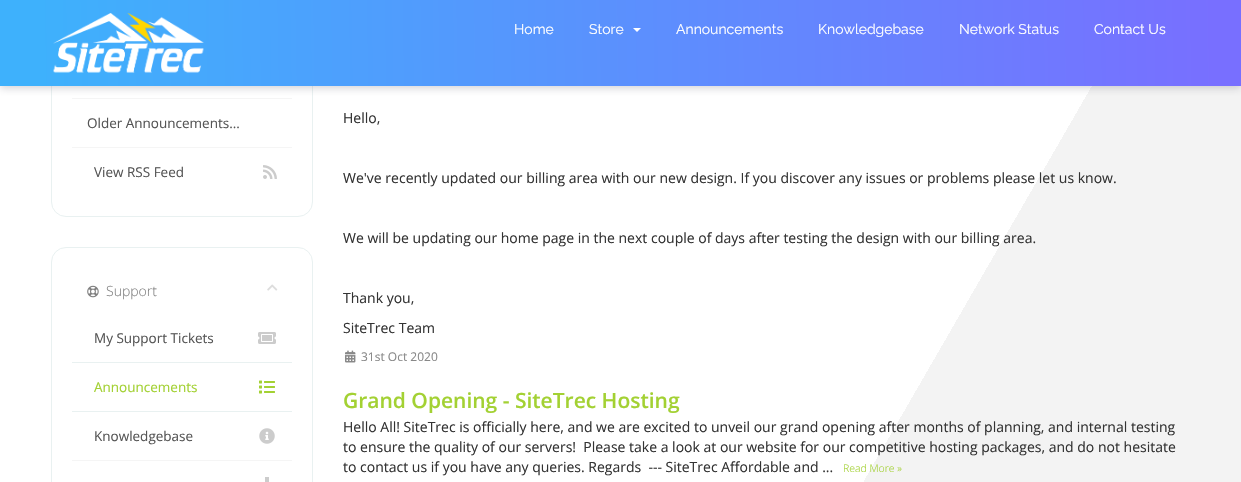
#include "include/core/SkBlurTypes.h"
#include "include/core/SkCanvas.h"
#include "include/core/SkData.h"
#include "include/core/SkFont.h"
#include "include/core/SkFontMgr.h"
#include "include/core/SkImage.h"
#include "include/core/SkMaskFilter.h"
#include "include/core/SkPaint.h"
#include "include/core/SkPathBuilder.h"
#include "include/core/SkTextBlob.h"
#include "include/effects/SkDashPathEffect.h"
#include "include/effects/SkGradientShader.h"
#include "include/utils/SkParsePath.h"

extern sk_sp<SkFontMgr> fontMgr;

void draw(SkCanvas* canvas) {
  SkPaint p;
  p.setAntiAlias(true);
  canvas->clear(SK_ColorWHITE);
  {
    const SkColor colors[] = {SK_ColorWHITE, SkColorSetRGB(243, 243, 243)};
    const float stops[] = {0.7f, 0.7f};
    const SkPoint ends[] = {{-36, -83}, {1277, 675}};
    p.setShader(SkGradientShader::MakeLinear(ends, colors, stops, 2, SkTileMode::kClamp));
    p.setAlpha(255);
  }
  canvas->drawRect(SkRect::MakeLTRB(864, 86, 1241, 482), p);
  p.setStyle(SkPaint::kStroke_Style);
  p.setStrokeWidth(1);
  p.setShader(nullptr);
  p.setColor(SkColorSetRGB(233, 241, 241));
  canvas->drawRoundRect(SkRect::MakeLTRB(51.5f, -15.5f, 312.5f, 216.5f), 14.5f, 14.5f, p);
  p.setStyle(SkPaint::kFill_Style);
  p.setColor(SkColorSetRGB(245, 245, 245));
  canvas->drawRect(SkRect::MakeLTRB(72, 98, 292, 99), p);
  p.setColor(SkColorSetARGB(59, 62, 62, 79));
  p.setMaskFilter(SkMaskFilter::MakeBlur(kNormal_SkBlurStyle, 4));
  canvas->drawRect(SkRect::MakeLTRB(0, 2, 1241, 88), p);
  p.setMaskFilter(nullptr);
  {
    const SkColor colors[] = {SkColorSetRGB(62, 177, 252), SkColorSetRGB(120, 111, 255)};
    const float stops[] = {0.03f, 0.98f};
    const SkPoint ends[] = {{-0.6f, 54}, {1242, 32}};
    p.setShader(SkGradientShader::MakeLinear(ends, colors, stops, 2, SkTileMode::kClamp));
    p.setAlpha(255);
  }
  canvas->drawRect(SkRect::MakeLTRB(0, 0, 1241, 86), p);
  canvas->drawImageRect(SkImages::DeferredFromEncodedData(SkData::MakeFromFileName("images/1.png")), SkRect::MakeLTRB(53, 13, 204, 73), SkSamplingOptions());
  p.setShader(nullptr);
  p.setColor(SK_ColorWHITE);
  canvas->drawPath(SkPathBuilder().moveTo(633, 28).lineTo(641, 28).lineTo(637, 32).close().detach(), p);
  p.setColor(SkColorSetRGB(245, 245, 245));
  canvas->drawRect(SkRect::MakeLTRB(72, 147, 292, 148), p);
  canvas->drawImageRect(SkImages::DeferredFromEncodedData(SkData::MakeFromFileName("images/2.png")), SkRect::MakeLTRB(263, 165, 277, 179), SkSamplingOptions());
  canvas->drawImageRect(SkImages::DeferredFromEncodedData(SkData::MakeFromFileName("images/3.png")), SkRect::MakeLTRB(345, 350, 356, 363), SkSamplingOptions());
  p.setStyle(SkPaint::kStroke_Style);
  p.setColor(SkColorSetRGB(233, 241, 241));
  canvas->drawRoundRect(SkRect::MakeLTRB(51.5f, 247.5f, 312.5f, 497.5f), 14.5f, 14.5f, p);
  canvas->drawImageRect(SkImages::DeferredFromEncodedData(SkData::MakeFromFileName("images/4.png")), SkRect::MakeLTRB(87, 285, 99, 298), SkSamplingOptions());
  canvas->drawImageRect(SkImages::DeferredFromEncodedData(SkData::MakeFromFileName("images/5.png")), SkRect::MakeLTRB(267, 284, 278, 291), SkSamplingOptions());
  canvas->drawImageRect(SkImages::DeferredFromEncodedData(SkData::MakeFromFileName("images/6.png")), SkRect::MakeLTRB(258, 332, 276, 344), SkSamplingOptions());
  p.setStyle(SkPaint::kFill_Style);
  canvas->drawRect(SkRect::MakeLTRB(72, 362, 292, 363), p);
  canvas->drawRect(SkRect::MakeLTRB(72, 411, 292, 412), p);
  canvas->drawImageRect(SkImages::DeferredFromEncodedData(SkData::MakeFromFileName("images/7.png")), SkRect::MakeLTRB(259, 380, 275, 394), SkSamplingOptions());
  p.setColor(SkColorSetRGB(245, 245, 245));
  canvas->drawRect(SkRect::MakeLTRB(72, 460, 292, 461), p);
  canvas->drawImageRect(SkImages::DeferredFromEncodedData(SkData::MakeFromFileName("images/8.png")), SkRect::MakeLTRB(259, 428, 275, 444), SkSamplingOptions());
  p.setColor(SkColorSetRGB(204, 204, 204));
  canvas->drawRect(SkRect::MakeLTRB(265, 477, 269, 482), p);
  SkFont font1(fontMgr->matchFamilyStyle("Raleway", SkFontStyle::Normal()), 14);
  font1.setSubpixel(true);
  p.setColor(SK_ColorWHITE);
  canvas->drawString("Home", 514, 34, font1, p);
  canvas->drawString("Store", 589, 34, font1, p);
  canvas->drawString("Announcements", 676, 34, font1, p);
  canvas->drawString("Knowledgebase", 818, 34, font1, p);
  canvas->drawString("Network Status", 959, 34, font1, p);
  canvas->drawString("Contact Us", 1094, 34, font1, p);
  SkFont font2(fontMgr->matchFamilyStyle("Open Sans", SkFontStyle::Normal()), 13.5f);
  font2.setSubpixel(true);
  p.setColor(SkColorSetRGB(85, 85, 85));
  canvas->drawString("Older Announcements...", 87, 128, font2, p);
  canvas->drawString("View RSS Feed", 94, 177, font2, p);
  SkFont font3(fontMgr->matchFamilyStyle("Open Sans", SkFontStyle::Normal()), 14);
  font3.setSubpixel(true);
  p.setColor(SkColorSetRGB(51, 51, 51));
  canvas->drawString("Hello,", 343, 123, font3, p);
  canvas->drawString("We've recently updated our billing area with our new design. If you discover any issues or problems please let us know.", 343, 183, font3, p);
  canvas->drawString("We will be updating our home page in the next couple of days after testing the design with our billing area.", 343, 243, font3, p);
  canvas->drawString("Thank you,", 343, 303, font3, p);
  canvas->drawString("SiteTrec Team", 343, 333, font3, p);
  SkFont font4(fontMgr->matchFamilyStyle("Open Sans", SkFontStyle::Normal()), 12);
  font4.setSubpixel(true);
  p.setColor(SkColorSetRGB(136, 136, 136));
  canvas->drawString("31st Oct 2020", 361, 361, font4, p);
  SkFont font5(fontMgr->matchFamilyStyle("Open Sans", SkFontStyle(600, SkFontStyle::kNormal_Width, SkFontStyle::kUpright_Slant)), 21);
  font5.setSubpixel(true);
  p.setColor(SkColorSetRGB(163, 209, 51));
  canvas->drawString("Grand Opening - SiteTrec Hosting", 343, 408, font5, p);
  p.setColor(SkColorSetRGB(51, 51, 51));
  canvas->drawString("Hello All! SiteTrec is officially here, and we are excited to unveil our grand opening after months of planning, and internal testing", 343, 432, font3, p);
  canvas->drawString("to ensure the quality of our servers!  Please take a look at our website for our competitive hosting packages, and do not hesitate", 343, 452, font3, p);
  canvas->drawString("to contact us if you have any queries. Regards  --- SiteTrec Affordable and ...", 343, 472, font3, p);
  SkFont font6(fontMgr->matchFamilyStyle("Open Sans", SkFontStyle(300, SkFontStyle::kNormal_Width, SkFontStyle::kUpright_Slant)), 10.5f);
  font6.setSubpixel(true);
  p.setColor(SkColorSetRGB(163, 209, 51));
  canvas->drawString("Read More »", 843, 472, font6, p);
  SkFont font7(fontMgr->matchFamilyStyle("Open Sans", SkFontStyle(300, SkFontStyle::kNormal_Width, SkFontStyle::kUpright_Slant)), 14);
  font7.setSubpixel(true);
  p.setColor(SkColorSetRGB(128, 128, 128));
  canvas->drawString("Support", 106, 296, font7, p);
  p.setColor(SkColorSetRGB(85, 85, 85));
  canvas->drawString("My Support Tickets", 94, 343, font2, p);
  p.setColor(SkColorSetRGB(163, 209, 51));
  canvas->drawString("Announcements", 94, 392, font2, p);
  p.setColor(SkColorSetRGB(85, 85, 85));
  canvas->drawString("Knowledgebase", 94, 441, font2, p);
}
